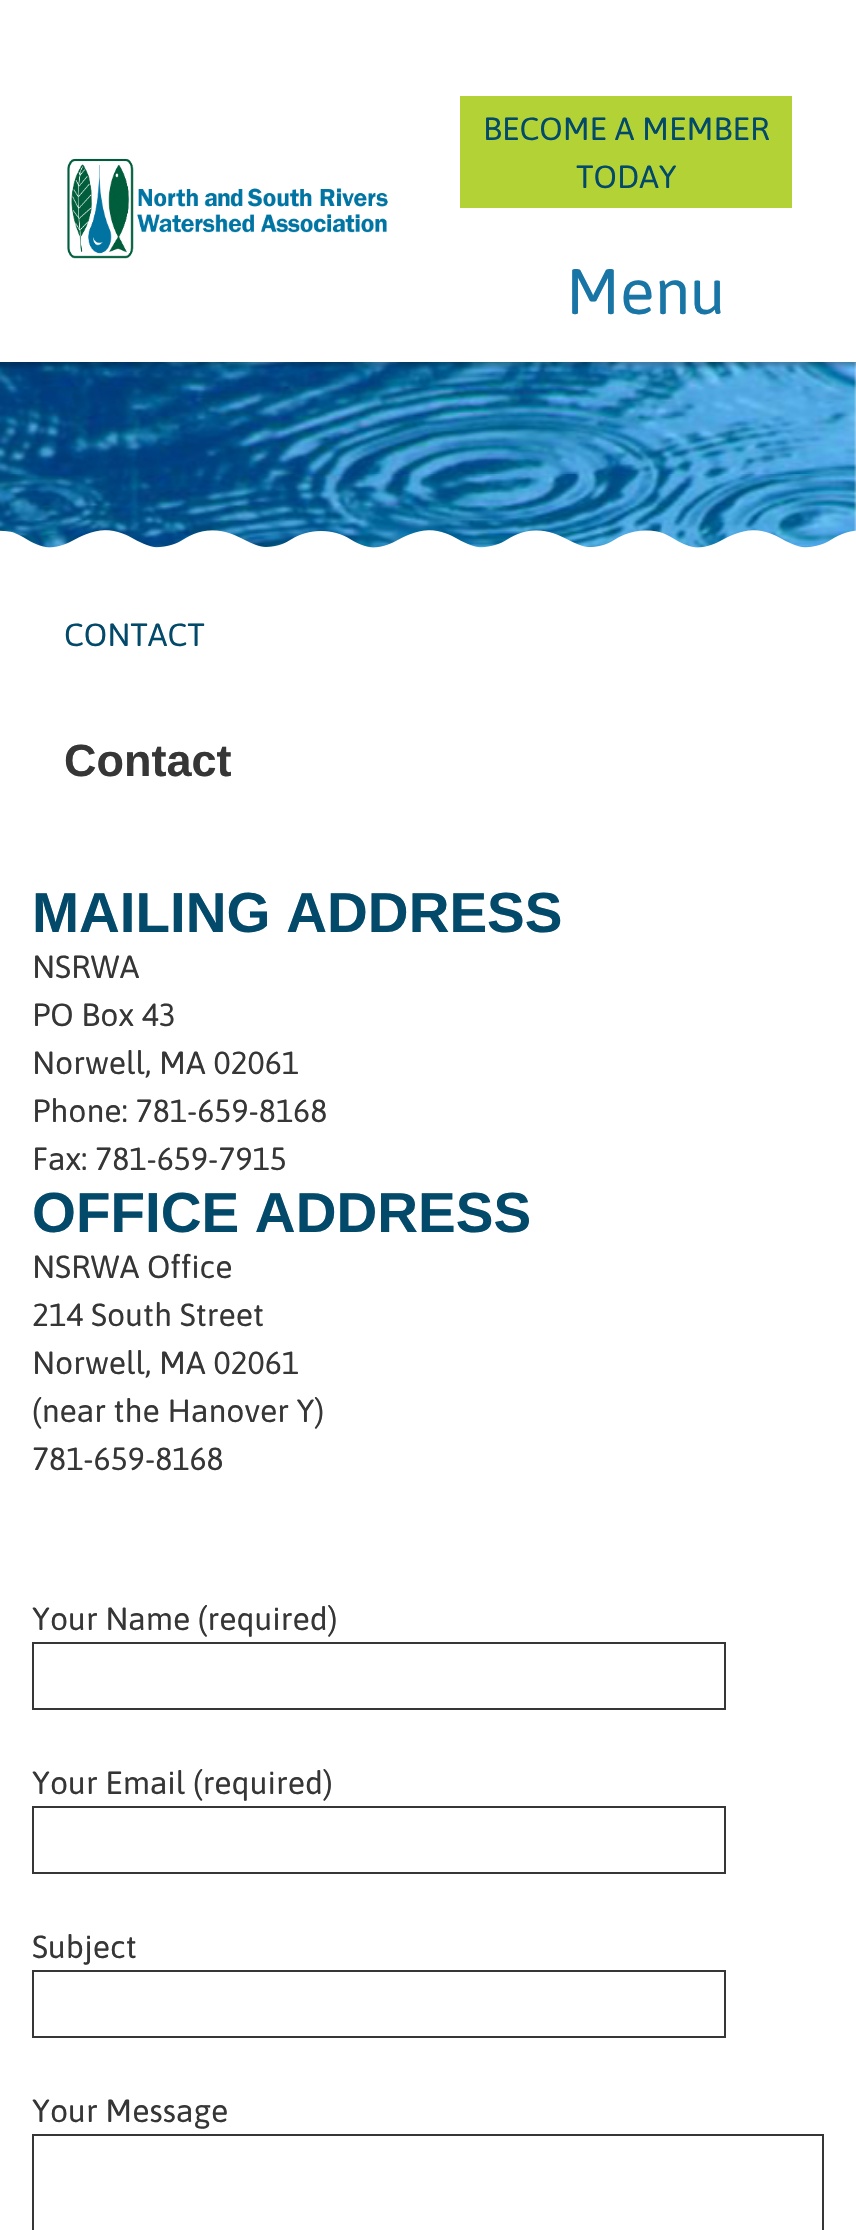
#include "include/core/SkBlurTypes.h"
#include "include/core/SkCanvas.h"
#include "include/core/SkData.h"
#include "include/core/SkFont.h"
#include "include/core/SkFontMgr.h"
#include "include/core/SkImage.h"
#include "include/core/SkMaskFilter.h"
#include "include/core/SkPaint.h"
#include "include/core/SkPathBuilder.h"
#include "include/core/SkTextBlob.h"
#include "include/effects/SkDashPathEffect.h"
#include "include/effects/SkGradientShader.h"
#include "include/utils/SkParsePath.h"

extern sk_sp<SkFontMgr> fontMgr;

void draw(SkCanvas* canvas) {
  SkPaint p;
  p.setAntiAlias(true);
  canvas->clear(SK_ColorWHITE);
  canvas->drawImageRect(SkImages::DeferredFromEncodedData(SkData::MakeFromFileName("images/2.png")), SkRect::MakeLTRB(0, 362, 856, 548), SkSamplingOptions());
  canvas->save();
  canvas->clipRect(SkRect::MakeLTRB(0, 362, 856, 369));
  p.setColor(SkColorSetARGB(64, 0, 0, 0));
  p.setMaskFilter(SkMaskFilter::MakeBlur(kNormal_SkBlurStyle, 2));
  canvas->drawRect(SkRect::MakeLTRB(-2, -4, 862, 366), p);
  p.setMaskFilter(nullptr);
  canvas->restore();
  canvas->drawImageRect(SkImages::DeferredFromEncodedData(SkData::MakeFromFileName("images/1.png")), SkRect::MakeLTRB(67, 158, 388, 259), SkSamplingOptions());
  p.setColor(SkColorSetRGB(178, 210, 53));
  canvas->drawRect(SkRect::MakeLTRB(460, 96, 792, 208), p);
  canvas->drawImageRect(SkImages::DeferredFromEncodedData(SkData::MakeFromFileName("images/3.png")), SkRect::MakeLTRB(0, 530, 856, 562), SkSamplingOptions());
  p.setStyle(SkPaint::kStroke_Style);
  p.setStrokeWidth(2);
  p.setColor(SkColorSetRGB(54, 54, 54));
  canvas->drawRect(SkRect::MakeLTRB(33, 1643, 725, 1709), p);
  canvas->drawRect(SkRect::MakeLTRB(33, 1807, 725, 1873), p);
  canvas->drawRect(SkRect::MakeLTRB(33, 1971, 725, 2037), p);
  canvas->drawRect(SkRect::MakeLTRB(33, 2135, 823, 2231), p);
  SkFont font1(fontMgr->matchFamilyStyle("Asap", SkFontStyle::Normal()), 32);
  font1.setSubpixel(true);
  p.setStyle(SkPaint::kFill_Style);
  p.setColor(SkColorSetRGB(2, 73, 106));
  canvas->drawString("BECOME A MEMBER", 483, 140, font1, p);
  canvas->drawString("TODAY", 576, 188, font1, p);
  SkFont font2(fontMgr->matchFamilyStyle("Asap", SkFontStyle::Normal()), 64);
  font2.setSubpixel(true);
  p.setColor(SkColorSetRGB(25, 117, 165));
  canvas->drawString("Menu", 566, 314, font2, p);
  p.setColor(SkColorSetRGB(2, 73, 106));
  canvas->drawString("CONTACT", 64, 646, font1, p);
  SkFont font3(fontMgr->matchFamilyStyle("Liberation Sans", SkFontStyle::Bold()), 45);
  font3.setSubpixel(true);
  p.setColor(SkColorSetRGB(54, 54, 54));
  canvas->drawString("Contact", 64, 776, font3, p);
  SkFont font4(fontMgr->matchFamilyStyle("Liberation Sans", SkFontStyle::Bold()), 56.5f);
  font4.setSubpixel(true);
  p.setColor(SkColorSetRGB(2, 73, 106));
  canvas->drawString("MAILING ADDRESS", 32, 932, font4, p);
  p.setColor(SkColorSetRGB(54, 54, 54));
  canvas->drawString("NSRWA", 32, 978, font1, p);
  canvas->drawString("PO Box 43", 32, 1026, font1, p);
  canvas->drawString("Norwell, MA 02061", 32, 1074, font1, p);
  canvas->drawString("Phone: 781-659-8168", 32, 1122, font1, p);
  canvas->drawString("Fax: 781-659-7915", 32, 1170, font1, p);
  p.setColor(SkColorSetRGB(2, 73, 106));
  canvas->drawString("OFFICE ADDRESS", 32, 1232, font4, p);
  p.setColor(SkColorSetRGB(54, 54, 54));
  canvas->drawString("NSRWA Office", 32, 1278, font1, p);
  canvas->drawString("214 South Street", 32, 1326, font1, p);
  canvas->drawString("Norwell, MA 02061", 32, 1374, font1, p);
  canvas->drawString("(near the Hanover Y)", 32, 1422, font1, p);
  canvas->drawString("781-659-8168", 32, 1470, font1, p);
  canvas->drawString("Your Name (required)", 32, 1630, font1, p);
  canvas->drawString("Your Email (required)", 32, 1794, font1, p);
  canvas->drawString("Subject", 32, 1958, font1, p);
  canvas->drawString("Your Message", 32, 2122, font1, p);
}
